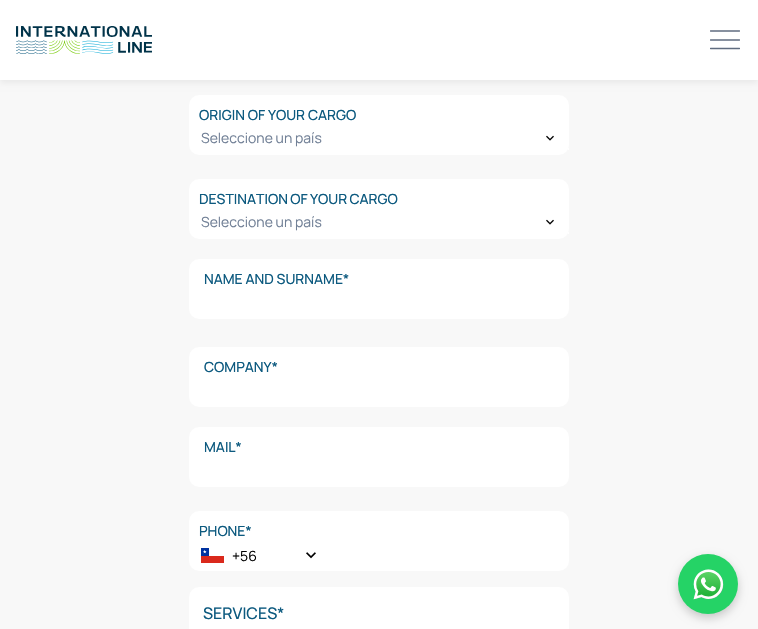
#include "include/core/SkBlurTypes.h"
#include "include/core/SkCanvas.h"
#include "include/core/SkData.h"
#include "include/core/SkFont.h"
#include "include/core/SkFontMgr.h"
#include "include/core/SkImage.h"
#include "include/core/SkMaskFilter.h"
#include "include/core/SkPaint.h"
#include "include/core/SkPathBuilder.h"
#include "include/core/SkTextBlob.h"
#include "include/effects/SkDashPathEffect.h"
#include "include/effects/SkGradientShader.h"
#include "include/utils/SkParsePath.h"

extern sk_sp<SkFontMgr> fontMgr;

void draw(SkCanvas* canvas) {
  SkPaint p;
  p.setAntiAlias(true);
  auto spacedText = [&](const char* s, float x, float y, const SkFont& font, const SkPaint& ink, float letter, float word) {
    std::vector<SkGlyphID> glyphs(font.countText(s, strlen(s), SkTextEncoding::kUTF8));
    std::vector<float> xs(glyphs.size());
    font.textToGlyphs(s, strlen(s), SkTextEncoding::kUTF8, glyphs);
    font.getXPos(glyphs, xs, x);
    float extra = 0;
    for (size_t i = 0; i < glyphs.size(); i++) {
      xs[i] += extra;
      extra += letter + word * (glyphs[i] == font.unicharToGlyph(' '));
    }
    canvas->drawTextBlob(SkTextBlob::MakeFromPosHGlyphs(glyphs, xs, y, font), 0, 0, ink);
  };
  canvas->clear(SkColorSetRGB(248, 248, 248));
  p.setColor(SkColorSetARGB(15, 0, 0, 0));
  p.setMaskFilter(SkMaskFilter::MakeBlur(kNormal_SkBlurStyle, 3));
  canvas->drawRect(SkRect::MakeLTRB(0, 3, 758, 83), p);
  p.setMaskFilter(nullptr);
  p.setColor(SK_ColorWHITE);
  canvas->drawRect(SkRect::MakeLTRB(0, 0, 758, 80), p);
  canvas->drawImageRect(SkImages::DeferredFromEncodedData(SkData::MakeFromFileName("images/1.png")), SkRect::MakeLTRB(16, 26, 152, 54), SkSamplingOptions());
  canvas->save();
  canvas->clipRect(SkRect::MakeLTRB(710, 30, 740, 50));
  p.setStyle(SkPaint::kStroke_Style);
  p.setStrokeWidth(1.5f);
  p.setStrokeCap(SkPaint::kRound_Cap);
  p.setStrokeJoin(SkPaint::kRound_Join);
  p.setColor(SkColorSetRGB(96, 108, 128));
  canvas->drawPath(SkPathBuilder().moveTo(710.5f, 48.5f).lineTo(739.5f, 48.5f).moveTo(710.5f, 40).lineTo(739.5f, 40).moveTo(710.5f, 31).lineTo(739.5f, 31).detach(), p);
  canvas->restore();
  p.setStyle(SkPaint::kFill_Style);
  p.setColor(SK_ColorWHITE);
  canvas->drawRoundRect(SkRect::MakeLTRB(189, 95, 569, 155), 10, 10, p);
  canvas->drawRect(SkRect::MakeLTRB(568, 148, 569, 150), p);
  canvas->drawImageRect(SkImages::DeferredFromEncodedData(SkData::MakeFromFileName("images/2.png")), SkRect::MakeLTRB(546, 135, 554, 141), SkSamplingOptions());
  canvas->drawRoundRect(SkRect::MakeLTRB(189, 179, 569, 239), 10, 10, p);
  canvas->drawRect(SkRect::MakeLTRB(568, 232, 569, 234), p);
  canvas->drawImageRect(SkImages::DeferredFromEncodedData(SkData::MakeFromFileName("images/2.png")), SkRect::MakeLTRB(546, 219, 554, 225), SkSamplingOptions());
  canvas->drawRoundRect(SkRect::MakeLTRB(189, 259, 569, 319), 10, 10, p);
  canvas->drawRoundRect(SkRect::MakeLTRB(189, 347, 569, 407), 10, 10, p);
  canvas->drawRoundRect(SkRect::MakeLTRB(189, 427, 569, 487), 10, 10, p);
  canvas->drawRoundRect(SkRect::MakeLTRB(189, 511, 569, 571), 10, 10, p);
  canvas->drawImageRect(SkImages::DeferredFromEncodedData(SkData::MakeFromFileName("images/3.png")), SkRect::MakeLTRB(201, 548, 224, 563), SkSamplingOptions());
  canvas->drawImageRect(SkImages::DeferredFromEncodedData(SkData::MakeFromFileName("images/4.png")), SkRect::MakeLTRB(306, 552, 316, 559), SkSamplingOptions());
  canvas->drawRoundRect(SkRect::MakeLTRB(189, 587, 569, 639), 10, 10, p);
  p.setColor(SkColorSetARGB(51, 0, 0, 0));
  p.setMaskFilter(SkMaskFilter::MakeBlur(kNormal_SkBlurStyle, 5));
  canvas->drawRoundRect(SkRect::MakeLTRB(678, 558, 738, 618), 30, 30, p);
  p.setMaskFilter(nullptr);
  p.setColor(SkColorSetRGB(37, 211, 102));
  canvas->drawCircle(708, 584, 30, p);
  canvas->drawImageRect(SkImages::DeferredFromEncodedData(SkData::MakeFromFileName("images/5.png")), SkRect::MakeLTRB(693, 569, 724, 600), SkSamplingOptions());
  SkFont font1(fontMgr->matchFamilyStyle("Manrope", SkFontStyle(500, SkFontStyle::kNormal_Width, SkFontStyle::kUpright_Slant)), 14);
  font1.setSubpixel(true);
  p.setColor(SkColorSetRGB(13, 90, 127));
  canvas->drawString("ORIGIN OF YOUR CARGO", 199, 120, font1, p);
  SkFont font2(fontMgr->matchFamilyStyle("Manrope", SkFontStyle::Normal()), 14);
  font2.setSubpixel(true);
  p.setColor(SkColorSetRGB(113, 128, 150));
  canvas->drawString("Seleccione un país", 201, 143, font2, p);
  p.setColor(SkColorSetRGB(13, 90, 127));
  spacedText("DESTINATION OF YOUR CARGO", 199, 204, font1, p, 0, -0.5f);
  p.setColor(SkColorSetRGB(113, 128, 150));
  canvas->drawString("Seleccione un país", 201, 227, font2, p);
  p.setColor(SkColorSetRGB(13, 90, 127));
  canvas->drawString("NAME AND SURNAME*", 204, 284, font1, p);
  canvas->drawString("COMPANY*", 204, 372, font1, p);
  canvas->drawString("MAIL*", 204, 452, font1, p);
  canvas->drawString("PHONE*", 199, 536, font1, p);
  p.setColor(SK_ColorBLACK);
  canvas->drawString("+56", 232, 561, font2, p);
  SkFont font3(fontMgr->matchFamilyStyle("Manrope", SkFontStyle(500, SkFontStyle::kNormal_Width, SkFontStyle::kUpright_Slant)), 16);
  font3.setSubpixel(true);
  p.setColor(SkColorSetRGB(13, 90, 127));
  canvas->drawString("SERVICES*", 203, 619, font3, p);
}
